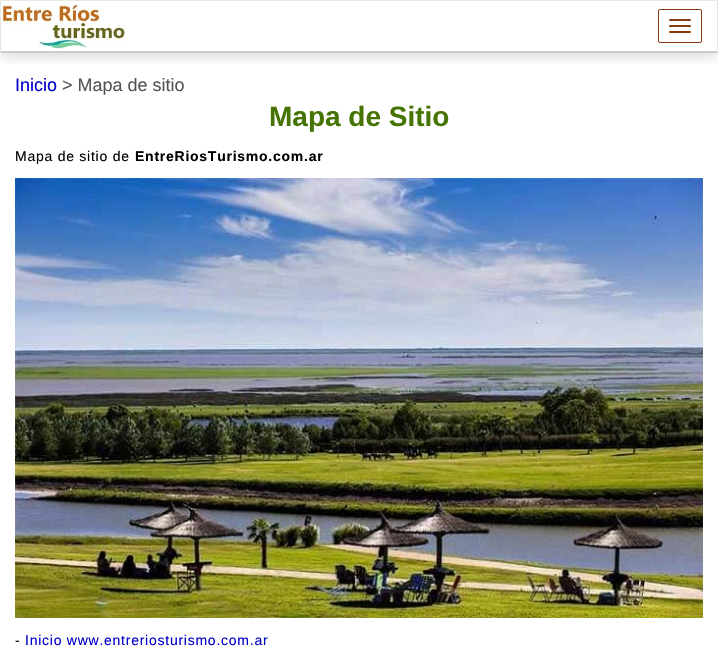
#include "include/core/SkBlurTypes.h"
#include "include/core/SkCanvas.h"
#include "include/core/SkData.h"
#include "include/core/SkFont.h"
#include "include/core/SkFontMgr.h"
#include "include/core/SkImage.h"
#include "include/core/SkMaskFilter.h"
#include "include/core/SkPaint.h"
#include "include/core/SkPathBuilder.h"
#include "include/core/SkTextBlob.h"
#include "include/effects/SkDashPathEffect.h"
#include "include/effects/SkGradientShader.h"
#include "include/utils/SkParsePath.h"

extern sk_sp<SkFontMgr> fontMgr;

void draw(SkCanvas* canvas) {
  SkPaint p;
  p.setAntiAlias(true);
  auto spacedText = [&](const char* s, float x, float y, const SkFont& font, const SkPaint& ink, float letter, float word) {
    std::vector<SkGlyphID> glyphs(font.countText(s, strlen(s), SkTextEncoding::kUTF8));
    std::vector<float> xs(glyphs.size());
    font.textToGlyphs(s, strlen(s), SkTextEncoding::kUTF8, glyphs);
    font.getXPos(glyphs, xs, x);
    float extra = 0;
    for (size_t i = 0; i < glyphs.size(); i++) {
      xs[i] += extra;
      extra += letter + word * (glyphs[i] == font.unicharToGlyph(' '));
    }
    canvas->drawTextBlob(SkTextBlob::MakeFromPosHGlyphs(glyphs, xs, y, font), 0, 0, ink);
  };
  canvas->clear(SK_ColorWHITE);
  canvas->save();
  canvas->clipRect(SkRect::MakeLTRB(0, 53, 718, 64));
  p.setColor(SkColorSetARGB(51, 0, 0, 0));
  p.setMaskFilter(SkMaskFilter::MakeBlur(kNormal_SkBlurStyle, 7.5f));
  canvas->drawRect(SkRect::MakeLTRB(0, 1, 718, 54), p);
  p.setMaskFilter(nullptr);
  canvas->restore();
  p.setColor(SkColorSetRGB(231, 231, 231));
  canvas->drawRect(SkRect::MakeLTRB(0, 0, 718, 1), p);
  canvas->drawPath(SkPathBuilder().moveTo(718, 0).lineTo(718, 53).lineTo(717, 51).lineTo(717, 1).close().detach(), p);
  p.setColor(SkColorSetARGB(51, 0, 0, 0));
  canvas->drawPath(SkPathBuilder().moveTo(718, 53).lineTo(0, 53).lineTo(1, 51).lineTo(717, 51).close().detach(), p);
  p.setColor(SkColorSetRGB(231, 231, 231));
  canvas->drawPath(SkPathBuilder().moveTo(0, 53).lineTo(0, 0).lineTo(1, 1).lineTo(1, 51).close().detach(), p);
  canvas->drawImageRect(SkImages::DeferredFromEncodedData(SkData::MakeFromFileName("images/1.png")), SkRect::MakeLTRB(1, 4, 125, 49), SkSamplingOptions());
  p.setStyle(SkPaint::kStroke_Style);
  p.setStrokeWidth(1);
  p.setColor(SkColorSetRGB(136, 59, 18));
  canvas->drawRoundRect(SkRect::MakeLTRB(658.5f, 9.5f, 701.5f, 42.5f), 1.5f, 1.5f, p);
  p.setStyle(SkPaint::kFill_Style);
  canvas->drawRoundRect(SkRect::MakeLTRB(669, 19, 691, 21), 1, 1, p);
  canvas->drawRoundRect(SkRect::MakeLTRB(669, 25, 691, 27), 1, 1, p);
  canvas->drawRoundRect(SkRect::MakeLTRB(669, 31, 691, 33), 1, 1, p);
  canvas->drawImageRect(SkImages::DeferredFromEncodedData(SkData::MakeFromFileName("images/2.png")), SkRect::MakeLTRB(15, 178, 703, 618), SkSamplingOptions());
  SkFont font1(fontMgr->matchFamilyStyle("Liberation Sans", SkFontStyle::Normal()), 18);
  font1.setSubpixel(true);
  p.setColor(SkColorSetRGB(0, 0, 204));
  canvas->drawString("Inicio", 15, 91, font1, p);
  p.setColor(SkColorSetRGB(84, 84, 84));
  canvas->drawString("> Mapa de sitio", 62, 91, font1, p);
  SkFont font2(fontMgr->matchFamilyStyle("Liberation Sans", SkFontStyle::Bold()), 28);
  font2.setSubpixel(true);
  p.setColor(SkColorSetRGB(69, 116, 2));
  canvas->drawString("Mapa de Sitio", 269, 126, font2, p);
  SkFont font3(fontMgr->matchFamilyStyle("Liberation Sans", SkFontStyle::Normal()), 14);
  font3.setSubpixel(true);
  p.setColor(SK_ColorBLACK);
  spacedText("Mapa de sitio de", 15, 161, font3, p, 0.75f, 0);
  SkFont font4(fontMgr->matchFamilyStyle("Liberation Sans", SkFontStyle::Bold()), 14);
  font4.setSubpixel(true);
  spacedText("EntreRiosTurismo.com.ar", 135, 161, font4, p, 0.75f, 0);
  spacedText("-", 15, 645, font3, p, 0.75f, 0);
  p.setColor(SkColorSetRGB(0, 0, 204));
  spacedText("Inicio www.entreriosturismo.com.ar", 25, 645, font3, p, 0.75f, 0);
}
